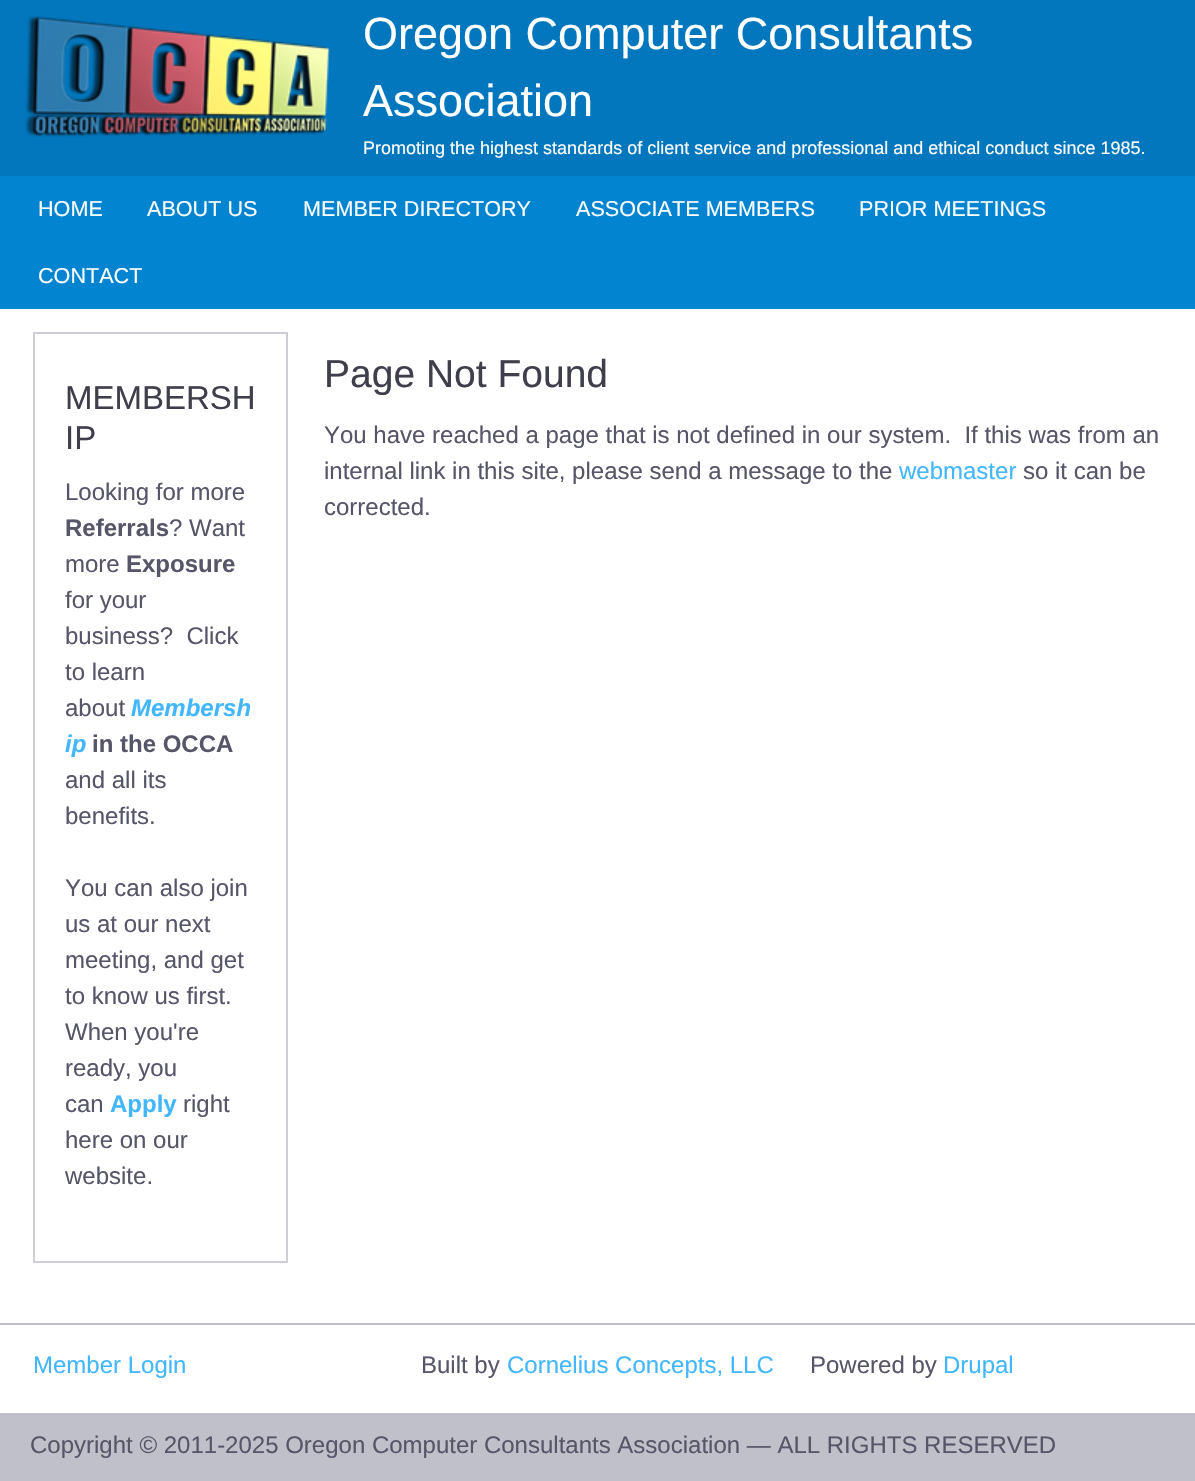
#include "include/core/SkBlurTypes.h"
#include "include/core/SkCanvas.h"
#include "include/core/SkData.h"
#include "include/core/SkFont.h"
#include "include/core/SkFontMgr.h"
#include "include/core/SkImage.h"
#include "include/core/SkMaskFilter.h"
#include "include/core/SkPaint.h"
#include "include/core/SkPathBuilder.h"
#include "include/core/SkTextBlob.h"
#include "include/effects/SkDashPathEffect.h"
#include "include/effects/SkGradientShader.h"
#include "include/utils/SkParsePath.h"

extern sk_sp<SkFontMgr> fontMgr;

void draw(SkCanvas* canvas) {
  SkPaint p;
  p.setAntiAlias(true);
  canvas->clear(SK_ColorWHITE);
  p.setColor(SkColorSetRGB(2, 119, 189));
  canvas->drawRect(SkRect::MakeLTRB(0, 0, 1195, 176), p);
  canvas->drawImageRect(SkImages::DeferredFromEncodedData(SkData::MakeFromFileName("images/1.png")), SkRect::MakeLTRB(25, 15, 330, 137), SkSamplingOptions());
  p.setColor(SkColorSetRGB(2, 132, 209));
  canvas->drawRect(SkRect::MakeLTRB(0, 176, 1195, 309), p);
  p.setStyle(SkPaint::kStroke_Style);
  p.setStrokeWidth(2);
  p.setColor(SkColorSetRGB(206, 206, 214));
  canvas->drawRect(SkRect::MakeLTRB(34, 333, 287, 1262), p);
  p.setStyle(SkPaint::kFill_Style);
  p.setColor(SkColorSetRGB(192, 192, 202));
  canvas->drawRect(SkRect::MakeLTRB(0, 1323, 1195, 1325), p);
  canvas->drawRect(SkRect::MakeLTRB(0, 1413, 1195, 1481), p);
  SkFont font1(fontMgr->matchFamilyStyle("Liberation Sans", SkFontStyle::Normal()), 45);
  font1.setSubpixel(true);
  p.setColor(SK_ColorWHITE);
  canvas->drawString("Oregon Computer Consultants", 363, 49, font1, p);
  canvas->drawString("Association", 363, 116, font1, p);
  SkFont font2(fontMgr->matchFamilyStyle("Liberation Sans", SkFontStyle::Normal()), 18);
  font2.setSubpixel(true);
  canvas->drawString("Promoting the highest standards of client service and professional and ethical conduct since 1985.", 363, 154, font2, p);
  SkFont font3(fontMgr->matchFamilyStyle("Liberation Sans", SkFontStyle::Normal()), 21.6f);
  font3.setSubpixel(true);
  canvas->drawString("HOME", 38, 216, font3, p);
  canvas->drawString("ABOUT US", 147, 216, font3, p);
  canvas->drawString("MEMBER DIRECTORY", 303, 216, font3, p);
  canvas->drawString("ASSOCIATE MEMBERS", 576, 216, font3, p);
  canvas->drawString("PRIOR MEETINGS", 859, 216, font3, p);
  canvas->drawString("CONTACT", 38, 283, font3, p);
  SkFont font4(fontMgr->matchFamilyStyle("Liberation Sans", SkFontStyle::Normal()), 33);
  font4.setSubpixel(true);
  p.setColor(SkColorSetRGB(63, 63, 76));
  canvas->drawString("MEMBERSH", 65, 409, font4, p);
  canvas->drawString("IP", 65, 449, font4, p);
  SkFont font5(fontMgr->matchFamilyStyle("Liberation Sans", SkFontStyle::Normal()), 24);
  font5.setSubpixel(true);
  p.setColor(SkColorSetRGB(86, 86, 104));
  canvas->drawString("Looking for more", 65, 500, font5, p);
  SkFont font6(fontMgr->matchFamilyStyle("Liberation Sans", SkFontStyle::Bold()), 24);
  font6.setSubpixel(true);
  canvas->drawString("Referrals", 65, 536, font6, p);
  canvas->drawString("? Want", 169, 536, font5, p);
  canvas->drawString("more", 65, 572, font5, p);
  canvas->drawString("Exposure", 126, 572, font6, p);
  canvas->drawString("for your", 65, 608, font5, p);
  canvas->drawString("business?  Click", 65, 644, font5, p);
  canvas->drawString("to learn", 65, 680, font5, p);
  canvas->drawString("about", 65, 716, font5, p);
  SkFont font7(fontMgr->matchFamilyStyle("Liberation Sans", SkFontStyle::BoldItalic()), 24);
  font7.setSubpixel(true);
  p.setColor(SkColorSetRGB(66, 183, 253));
  canvas->drawString("Membersh", 131, 716, font7, p);
  canvas->drawString("ip", 65, 752, font7, p);
  p.setColor(SkColorSetRGB(86, 86, 104));
  canvas->drawString("in the OCCA", 92, 752, font6, p);
  canvas->drawString("and all its", 65, 788, font5, p);
  canvas->drawString("benefits.", 65, 824, font5, p);
  canvas->drawString("You can also join", 65, 896, font5, p);
  canvas->drawString("us at our next", 65, 932, font5, p);
  canvas->drawString("meeting, and get", 65, 968, font5, p);
  canvas->drawString("to know us first.", 65, 1004, font5, p);
  canvas->drawString("When you're", 65, 1040, font5, p);
  canvas->drawString("ready, you", 65, 1076, font5, p);
  canvas->drawString("can", 65, 1112, font5, p);
  p.setColor(SkColorSetRGB(66, 183, 253));
  canvas->drawString("Apply", 110, 1112, font6, p);
  p.setColor(SkColorSetRGB(86, 86, 104));
  canvas->drawString("right", 183, 1112, font5, p);
  canvas->drawString("here on our", 65, 1148, font5, p);
  canvas->drawString("website.", 65, 1184, font5, p);
  SkFont font8(fontMgr->matchFamilyStyle("Liberation Sans", SkFontStyle::Normal()), 39);
  font8.setSubpixel(true);
  p.setColor(SkColorSetRGB(63, 63, 76));
  canvas->drawString("Page Not Found", 324, 387, font8, p);
  p.setColor(SkColorSetRGB(86, 86, 104));
  canvas->drawString("You have reached a page that is not defined in our system.  If this was from an", 324, 443, font5, p);
  canvas->drawString("internal link in this site, please send a message to the", 324, 479, font5, p);
  p.setColor(SkColorSetRGB(66, 183, 253));
  canvas->drawString("webmaster", 899, 479, font5, p);
  p.setColor(SkColorSetRGB(86, 86, 104));
  canvas->drawString("so it can be", 1023, 479, font5, p);
  canvas->drawString("corrected.", 324, 515, font5, p);
  p.setColor(SkColorSetRGB(66, 183, 253));
  canvas->drawString("Member Login", 33, 1373, font5, p);
  p.setColor(SkColorSetRGB(86, 86, 104));
  canvas->drawString("Built by", 421, 1373, font5, p);
  p.setColor(SkColorSetRGB(66, 183, 253));
  canvas->drawString("Cornelius Concepts, LLC", 507, 1373, font5, p);
  p.setColor(SkColorSetRGB(86, 86, 104));
  canvas->drawString("Powered by", 810, 1373, font5, p);
  p.setColor(SkColorSetRGB(66, 183, 253));
  canvas->drawString("Drupal", 943, 1373, font5, p);
  p.setColor(SkColorSetRGB(86, 86, 104));
  canvas->drawString("Copyright © 2011-2025 Oregon Computer Consultants Association — ALL RIGHTS RESERVED", 30, 1453, font5, p);
}
